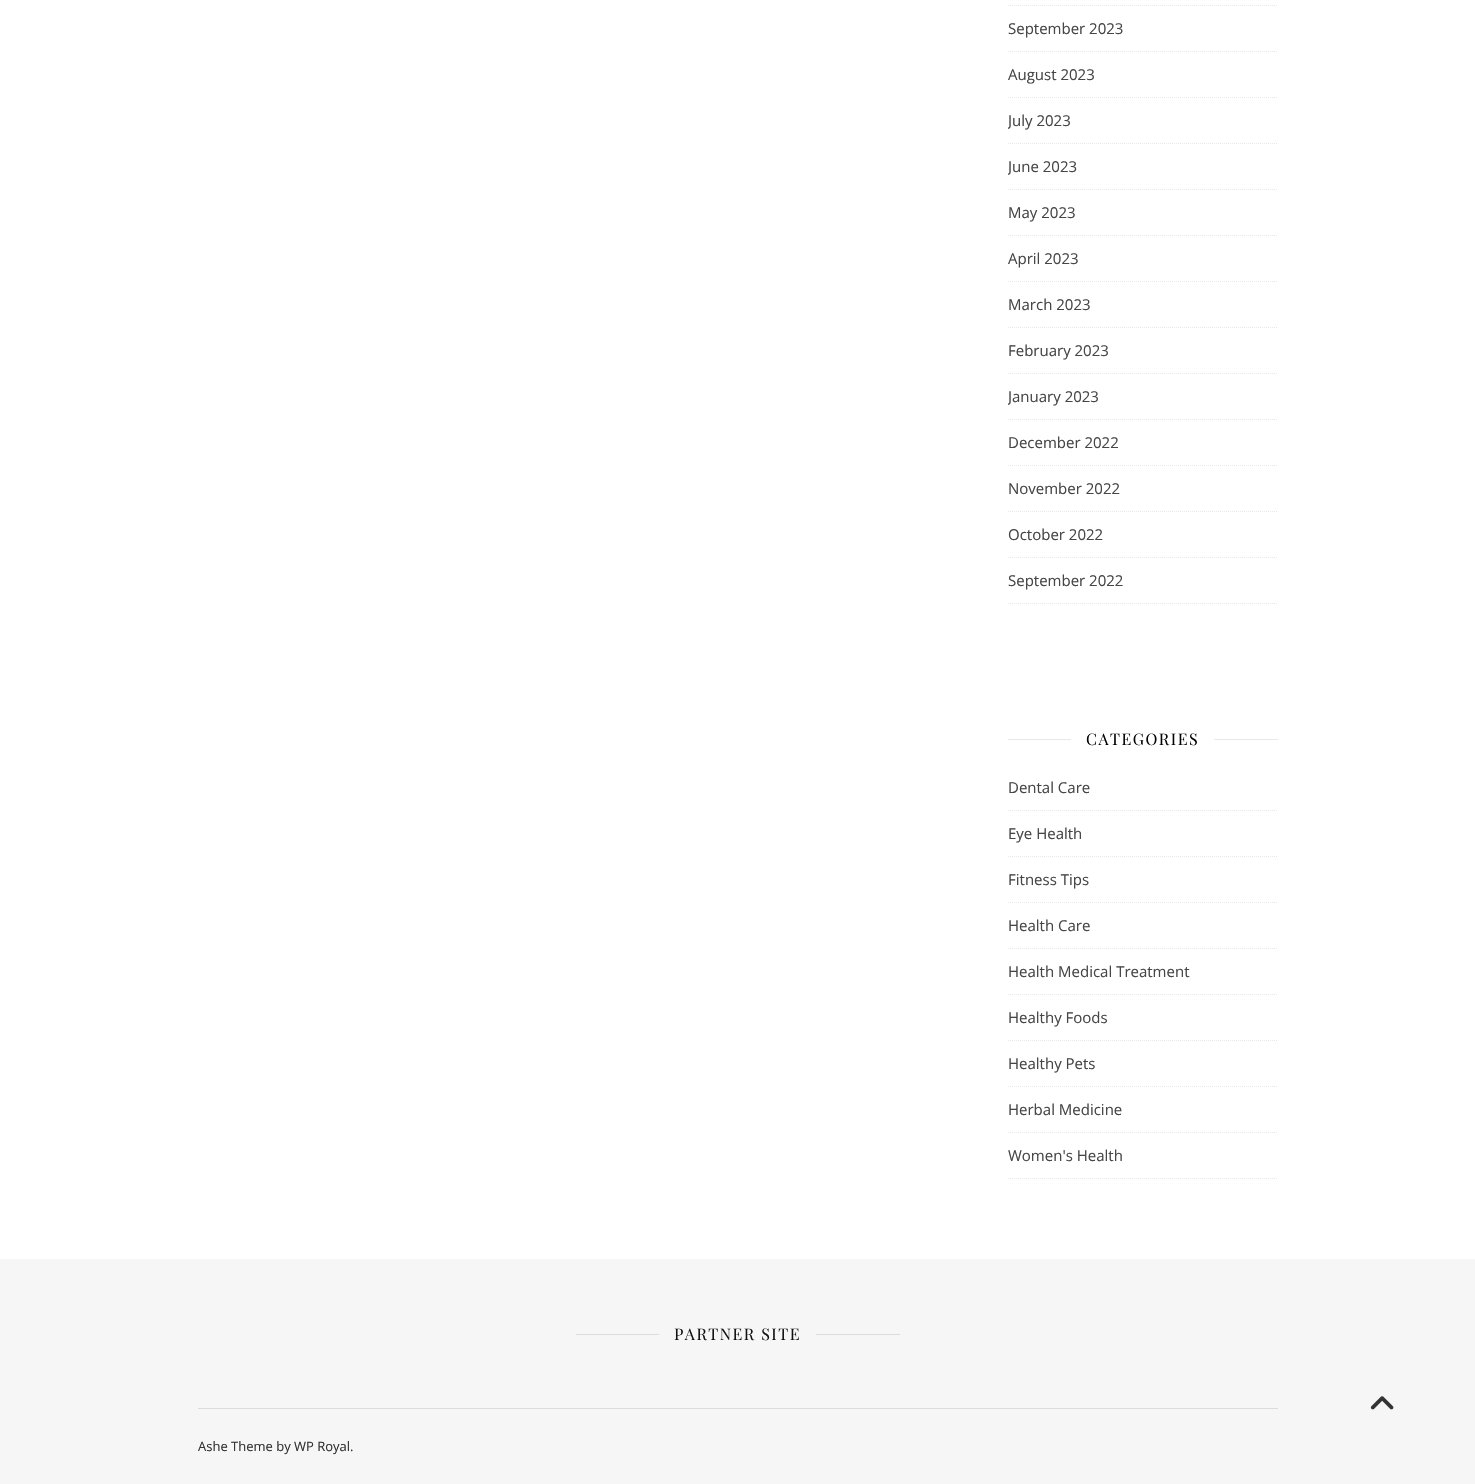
#include "include/core/SkBlurTypes.h"
#include "include/core/SkCanvas.h"
#include "include/core/SkData.h"
#include "include/core/SkFont.h"
#include "include/core/SkFontMgr.h"
#include "include/core/SkImage.h"
#include "include/core/SkMaskFilter.h"
#include "include/core/SkPaint.h"
#include "include/core/SkPathBuilder.h"
#include "include/core/SkTextBlob.h"
#include "include/effects/SkDashPathEffect.h"
#include "include/effects/SkGradientShader.h"
#include "include/utils/SkParsePath.h"

extern sk_sp<SkFontMgr> fontMgr;

void draw(SkCanvas* canvas) {
  SkPaint p;
  p.setAntiAlias(true);
  auto spacedText = [&](const char* s, float x, float y, const SkFont& font, const SkPaint& ink, float letter, float word) {
    std::vector<SkGlyphID> glyphs(font.countText(s, strlen(s), SkTextEncoding::kUTF8));
    std::vector<float> xs(glyphs.size());
    font.textToGlyphs(s, strlen(s), SkTextEncoding::kUTF8, glyphs);
    font.getXPos(glyphs, xs, x);
    float extra = 0;
    for (size_t i = 0; i < glyphs.size(); i++) {
      xs[i] += extra;
      extra += letter + word * (glyphs[i] == font.unicharToGlyph(' '));
    }
    canvas->drawTextBlob(SkTextBlob::MakeFromPosHGlyphs(glyphs, xs, y, font), 0, 0, ink);
  };
  canvas->clear(SK_ColorWHITE);
  p.setStyle(SkPaint::kStroke_Style);
  p.setStrokeWidth(1);
  p.setColor(SkColorSetRGB(232, 232, 232));
  p.setPathEffect(SkDashPathEffect::Make({{1, 1}}, 0));
  canvas->drawPath(SkPathBuilder().moveTo(1008, 5.5f).lineTo(1278, 5.5f).detach(), p);
  p.setPathEffect(nullptr);
  p.setPathEffect(SkDashPathEffect::Make({{1, 1}}, 0));
  canvas->drawPath(SkPathBuilder().moveTo(1008, 51.5f).lineTo(1278, 51.5f).detach(), p);
  p.setPathEffect(nullptr);
  p.setPathEffect(SkDashPathEffect::Make({{1, 1}}, 0));
  canvas->drawPath(SkPathBuilder().moveTo(1008, 97.5f).lineTo(1278, 97.5f).detach(), p);
  p.setPathEffect(nullptr);
  p.setPathEffect(SkDashPathEffect::Make({{1, 1}}, 0));
  canvas->drawPath(SkPathBuilder().moveTo(1008, 143.5f).lineTo(1278, 143.5f).detach(), p);
  p.setPathEffect(nullptr);
  p.setPathEffect(SkDashPathEffect::Make({{1, 1}}, 0));
  canvas->drawPath(SkPathBuilder().moveTo(1008, 189.5f).lineTo(1278, 189.5f).detach(), p);
  p.setPathEffect(nullptr);
  p.setPathEffect(SkDashPathEffect::Make({{1, 1}}, 0));
  canvas->drawPath(SkPathBuilder().moveTo(1008, 235.5f).lineTo(1278, 235.5f).detach(), p);
  p.setPathEffect(nullptr);
  p.setPathEffect(SkDashPathEffect::Make({{1, 1}}, 0));
  canvas->drawPath(SkPathBuilder().moveTo(1008, 281.5f).lineTo(1278, 281.5f).detach(), p);
  p.setPathEffect(nullptr);
  p.setPathEffect(SkDashPathEffect::Make({{1, 1}}, 0));
  canvas->drawPath(SkPathBuilder().moveTo(1008, 327.5f).lineTo(1278, 327.5f).detach(), p);
  p.setPathEffect(nullptr);
  p.setPathEffect(SkDashPathEffect::Make({{1, 1}}, 0));
  canvas->drawPath(SkPathBuilder().moveTo(1008, 373.5f).lineTo(1278, 373.5f).detach(), p);
  p.setPathEffect(nullptr);
  p.setPathEffect(SkDashPathEffect::Make({{1, 1}}, 0));
  canvas->drawPath(SkPathBuilder().moveTo(1008, 419.5f).lineTo(1278, 419.5f).detach(), p);
  p.setPathEffect(nullptr);
  p.setPathEffect(SkDashPathEffect::Make({{1, 1}}, 0));
  canvas->drawPath(SkPathBuilder().moveTo(1008, 465.5f).lineTo(1278, 465.5f).detach(), p);
  p.setPathEffect(nullptr);
  p.setPathEffect(SkDashPathEffect::Make({{1, 1}}, 0));
  canvas->drawPath(SkPathBuilder().moveTo(1008, 511.5f).lineTo(1278, 511.5f).detach(), p);
  p.setPathEffect(nullptr);
  p.setPathEffect(SkDashPathEffect::Make({{1, 1}}, 0));
  canvas->drawPath(SkPathBuilder().moveTo(1008, 557.5f).lineTo(1278, 557.5f).detach(), p);
  p.setPathEffect(nullptr);
  p.setPathEffect(SkDashPathEffect::Make({{1, 1}}, 0));
  canvas->drawPath(SkPathBuilder().moveTo(1008, 603.5f).lineTo(1278, 603.5f).detach(), p);
  p.setPathEffect(nullptr);
  p.setStyle(SkPaint::kFill_Style);
  canvas->drawRect(SkRect::MakeLTRB(1008, 739, 1071, 740), p);
  canvas->drawRect(SkRect::MakeLTRB(1214, 739, 1278, 740), p);
  p.setStyle(SkPaint::kStroke_Style);
  p.setPathEffect(SkDashPathEffect::Make({{1, 1}}, 0));
  canvas->drawPath(SkPathBuilder().moveTo(1008, 810.5f).lineTo(1278, 810.5f).detach(), p);
  p.setPathEffect(nullptr);
  p.setPathEffect(SkDashPathEffect::Make({{1, 1}}, 0));
  canvas->drawPath(SkPathBuilder().moveTo(1008, 856.5f).lineTo(1278, 856.5f).detach(), p);
  p.setPathEffect(nullptr);
  p.setPathEffect(SkDashPathEffect::Make({{1, 1}}, 0));
  canvas->drawPath(SkPathBuilder().moveTo(1008, 902.5f).lineTo(1278, 902.5f).detach(), p);
  p.setPathEffect(nullptr);
  p.setPathEffect(SkDashPathEffect::Make({{1, 1}}, 0));
  canvas->drawPath(SkPathBuilder().moveTo(1008, 948.5f).lineTo(1278, 948.5f).detach(), p);
  p.setPathEffect(nullptr);
  p.setPathEffect(SkDashPathEffect::Make({{1, 1}}, 0));
  canvas->drawPath(SkPathBuilder().moveTo(1008, 994.5f).lineTo(1278, 994.5f).detach(), p);
  p.setPathEffect(nullptr);
  p.setPathEffect(SkDashPathEffect::Make({{1, 1}}, 0));
  canvas->drawPath(SkPathBuilder().moveTo(1008, 1040.5f).lineTo(1278, 1040.5f).detach(), p);
  p.setPathEffect(nullptr);
  p.setPathEffect(SkDashPathEffect::Make({{1, 1}}, 0));
  canvas->drawPath(SkPathBuilder().moveTo(1008, 1086.5f).lineTo(1278, 1086.5f).detach(), p);
  p.setPathEffect(nullptr);
  p.setPathEffect(SkDashPathEffect::Make({{1, 1}}, 0));
  canvas->drawPath(SkPathBuilder().moveTo(1008, 1132.5f).lineTo(1278, 1132.5f).detach(), p);
  p.setPathEffect(nullptr);
  p.setPathEffect(SkDashPathEffect::Make({{1, 1}}, 0));
  canvas->drawPath(SkPathBuilder().moveTo(1008, 1178.5f).lineTo(1278, 1178.5f).detach(), p);
  p.setPathEffect(nullptr);
  p.setStyle(SkPaint::kFill_Style);
  p.setColor(SkColorSetRGB(246, 246, 246));
  canvas->drawRect(SkRect::MakeLTRB(0, 1259, 1475, 1484), p);
  p.setColor(SkColorSetRGB(224, 219, 219));
  canvas->drawRect(SkRect::MakeLTRB(198, 1408, 1278, 1409), p);
  canvas->drawRect(SkRect::MakeLTRB(576, 1334, 659, 1335), p);
  canvas->drawRect(SkRect::MakeLTRB(816, 1334, 900, 1335), p);
  canvas->drawImageRect(SkImages::DeferredFromEncodedData(SkData::MakeFromFileName("images/1.png")), SkRect::MakeLTRB(1370, 1396, 1394, 1410), SkSamplingOptions());
  SkFont font1(fontMgr->matchFamilyStyle("Open Sans", SkFontStyle::Normal()), 15);
  font1.setSubpixel(true);
  p.setColor(SkColorSetRGB(70, 70, 70));
  canvas->drawString("September 2023", 1008, 34, font1, p);
  canvas->drawString("August 2023", 1008, 80, font1, p);
  canvas->save();
  canvas->clipRect(SkRect::MakeLTRB(1008, 98, 1070, 143));
  canvas->drawString("July 2023", 1008, 126, font1, p);
  canvas->restore();
  canvas->save();
  canvas->clipRect(SkRect::MakeLTRB(1008, 144, 1077, 189));
  canvas->drawString("June 2023", 1008, 172, font1, p);
  canvas->restore();
  canvas->drawString("May 2023", 1008, 218, font1, p);
  canvas->drawString("April 2023", 1008, 264, font1, p);
  canvas->drawString("March 2023", 1008, 310, font1, p);
  canvas->drawString("February 2023", 1008, 356, font1, p);
  canvas->save();
  canvas->clipRect(SkRect::MakeLTRB(1008, 374, 1098, 419));
  canvas->drawString("January 2023", 1008, 402, font1, p);
  canvas->restore();
  canvas->drawString("December 2022", 1008, 448, font1, p);
  canvas->drawString("November 2022", 1008, 494, font1, p);
  canvas->drawString("October 2022", 1008, 540, font1, p);
  canvas->drawString("September 2022", 1008, 586, font1, p);
  SkFont font2(fontMgr->matchFamilyStyle("Playfair Display", SkFontStyle::Normal()), 16);
  font2.setSubpixel(true);
  p.setColor(SkColorSetRGB(3, 3, 3));
  spacedText("CATEGORIES", 1086, 745, font2, p, 1.5f, 0);
  p.setColor(SkColorSetRGB(70, 70, 70));
  canvas->drawString("Dental Care", 1008, 793, font1, p);
  canvas->drawString("Eye Health", 1008, 839, font1, p);
  canvas->drawString("Fitness Tips", 1008, 885, font1, p);
  canvas->drawString("Health Care", 1008, 931, font1, p);
  canvas->drawString("Health Medical Treatment", 1008, 977, font1, p);
  canvas->drawString("Healthy Foods", 1008, 1023, font1, p);
  canvas->drawString("Healthy Pets", 1008, 1069, font1, p);
  canvas->drawString("Herbal Medicine", 1008, 1115, font1, p);
  canvas->drawString("Women's Health", 1008, 1161, font1, p);
  p.setColor(SkColorSetRGB(17, 17, 17));
  spacedText("PARTNER SITE", 674, 1340, font2, p, 1.5f, 0);
  SkFont font3(fontMgr->matchFamilyStyle("Open Sans", SkFontStyle::Normal()), 13);
  font3.setSubpixel(true);
  p.setColor(SkColorSetRGB(51, 51, 51));
  canvas->drawString("Ashe Theme by WP Royal.", 198, 1451, font3, p);
}
